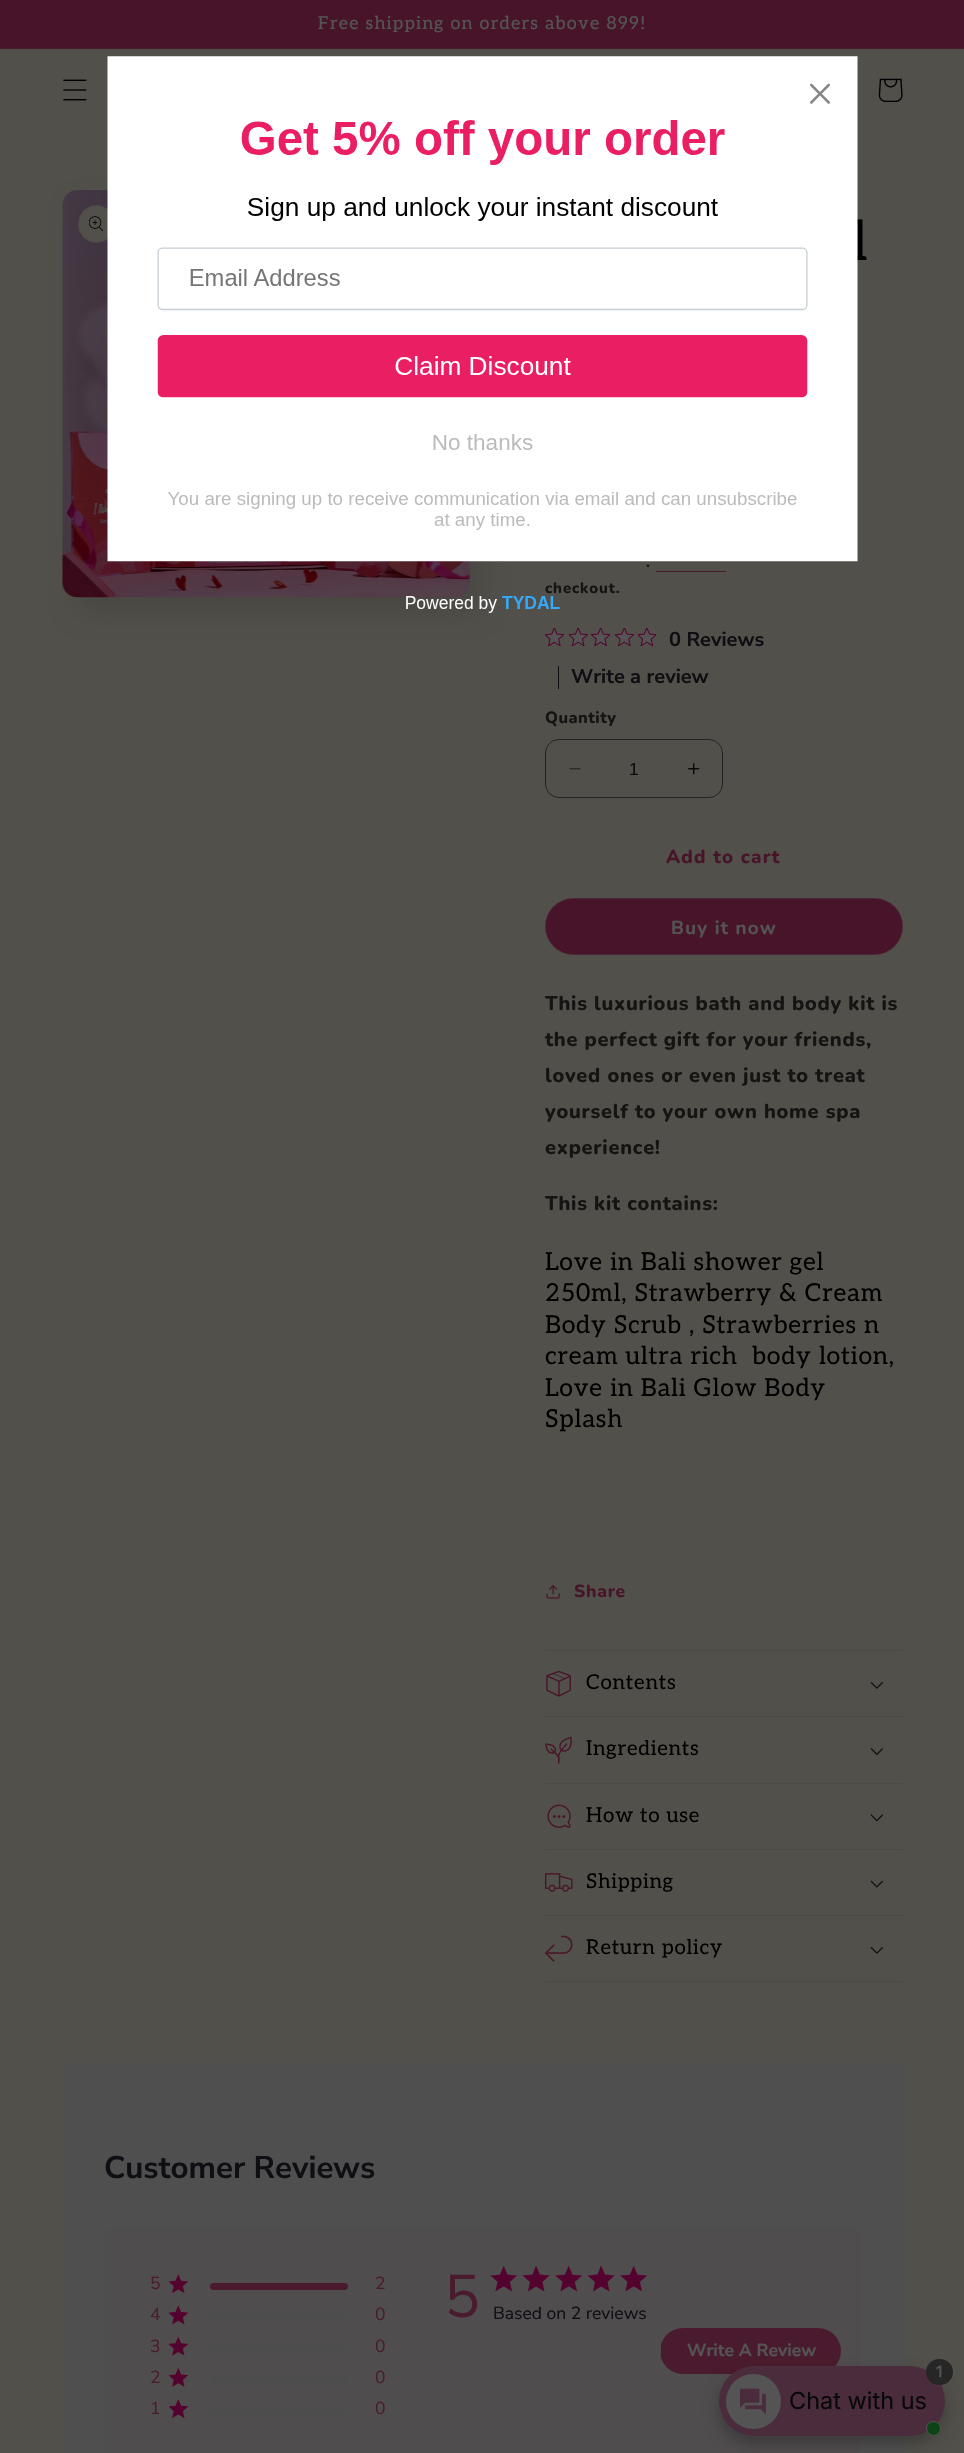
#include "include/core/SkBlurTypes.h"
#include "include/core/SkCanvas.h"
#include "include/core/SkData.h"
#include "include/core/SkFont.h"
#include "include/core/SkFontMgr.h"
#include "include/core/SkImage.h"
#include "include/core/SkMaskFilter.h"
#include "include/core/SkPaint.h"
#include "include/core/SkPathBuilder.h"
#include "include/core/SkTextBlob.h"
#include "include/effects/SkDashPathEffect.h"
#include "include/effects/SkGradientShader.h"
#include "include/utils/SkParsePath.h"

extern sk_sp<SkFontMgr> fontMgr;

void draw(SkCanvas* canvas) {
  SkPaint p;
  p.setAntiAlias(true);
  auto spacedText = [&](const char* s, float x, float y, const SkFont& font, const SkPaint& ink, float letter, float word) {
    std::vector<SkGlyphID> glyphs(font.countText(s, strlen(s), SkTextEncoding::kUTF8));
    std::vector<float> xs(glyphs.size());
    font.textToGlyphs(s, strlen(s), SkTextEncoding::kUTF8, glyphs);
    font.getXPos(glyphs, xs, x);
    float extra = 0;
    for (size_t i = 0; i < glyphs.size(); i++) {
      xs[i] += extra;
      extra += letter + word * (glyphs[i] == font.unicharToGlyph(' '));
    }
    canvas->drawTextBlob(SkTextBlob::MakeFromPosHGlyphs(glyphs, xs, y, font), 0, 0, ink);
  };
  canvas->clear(SkColorSetRGB(245, 241, 225));
  p.setColor(SkColorSetRGB(218, 60, 123));
  canvas->drawRect(SkRect::MakeLTRB(0, 0, 964, 48), p);
  p.setColor(SkColorSetRGB(221, 76, 134));
  canvas->drawRect(SkRect::MakeLTRB(0, 48, 964, 49), p);
  canvas->drawImageRect(SkImages::DeferredFromEncodedData(SkData::MakeFromFileName("images/2.png")), SkRect::MakeLTRB(63, 79, 87, 101), SkSamplingOptions());
  canvas->drawImageRect(SkImages::DeferredFromEncodedData(SkData::MakeFromFileName("images/3.png")), SkRect::MakeLTRB(878, 78, 903, 102), SkSamplingOptions());
  p.setColor(SkColorSetARGB(26, 0, 0, 0));
  p.setMaskFilter(SkMaskFilter::MakeBlur(kNormal_SkBlurStyle, 12.5f));
  canvas->drawRoundRect(SkRect::MakeLTRB(75, 205, 483, 613), 15, 15, p);
  p.setMaskFilter(nullptr);
  canvas->drawImageRect(SkImages::DeferredFromEncodedData(SkData::MakeFromFileName("images/4.png")), SkRect::MakeLTRB(62, 190, 470, 598), SkSamplingOptions());
  p.setColor(SkColorSetRGB(245, 241, 225));
  canvas->drawRoundRect(SkRect::MakeLTRB(78, 205, 115, 243), 18.5f, 18.5f, p);
  p.setStyle(SkPaint::kStroke_Style);
  p.setStrokeWidth(1);
  p.setColor(SkColorSetARGB(26, 0, 0, 0));
  canvas->drawRoundRect(SkRect::MakeLTRB(78.5f, 205.5f, 114.5f, 242.5f), 18, 18, p);
  canvas->drawImageRect(SkImages::DeferredFromEncodedData(SkData::MakeFromFileName("images/5.png")), SkRect::MakeLTRB(89, 216, 104, 232), SkSamplingOptions());
  p.setStyle(SkPaint::kFill_Style);
  p.setColor(SkColorSetRGB(222, 87, 138));
  canvas->drawRect(SkRect::MakeLTRB(656, 571, 726, 572), p);
  canvas->drawImageRect(SkImages::DeferredFromEncodedData(SkData::MakeFromFileName("images/6.png")), SkRect::MakeLTRB(545, 628, 564, 646), SkSamplingOptions());
  canvas->drawImageRect(SkImages::DeferredFromEncodedData(SkData::MakeFromFileName("images/7.png")), SkRect::MakeLTRB(569, 628, 588, 646), SkSamplingOptions());
  canvas->drawImageRect(SkImages::DeferredFromEncodedData(SkData::MakeFromFileName("images/8.png")), SkRect::MakeLTRB(591, 628, 610, 646), SkSamplingOptions());
  canvas->drawImageRect(SkImages::DeferredFromEncodedData(SkData::MakeFromFileName("images/6.png")), SkRect::MakeLTRB(615, 628, 634, 646), SkSamplingOptions());
  canvas->drawImageRect(SkImages::DeferredFromEncodedData(SkData::MakeFromFileName("images/9.png")), SkRect::MakeLTRB(638, 628, 656, 646), SkSamplingOptions());
  p.setColor(SkColorSetRGB(46, 42, 57));
  canvas->drawRect(SkRect::MakeLTRB(558, 666, 559, 689), p);
  canvas->drawImageRect(SkImages::DeferredFromEncodedData(SkData::MakeFromFileName("images/10.png")), SkRect::MakeLTRB(569, 768, 581, 770), SkSamplingOptions());
  canvas->drawImageRect(SkImages::DeferredFromEncodedData(SkData::MakeFromFileName("images/11.png")), SkRect::MakeLTRB(688, 763, 700, 775), SkSamplingOptions());
  p.setStyle(SkPaint::kStroke_Style);
  p.setColor(SkColorSetRGB(110, 108, 101));
  canvas->drawRoundRect(SkRect::MakeLTRB(545.5f, 739.5f, 722.5f, 797.5f), 13.5f, 13.5f, p);
  p.setStyle(SkPaint::kFill_Style);
  p.setColor(SkColorSetRGB(218, 60, 123));
  canvas->drawRoundRect(SkRect::MakeLTRB(545, 898, 903, 955), 28.5f, 28.5f, p);
  p.setStyle(SkPaint::kStroke_Style);
  p.setStrokeWidth(0.4f);
  p.setColor(SK_ColorWHITE);
  canvas->drawRoundRect(SkRect::MakeLTRB(545.2f, 898.2f, 902.8f, 954.8f), 28.3f, 28.3f, p);
  canvas->drawImageRect(SkImages::DeferredFromEncodedData(SkData::MakeFromFileName("images/12.png")), SkRect::MakeLTRB(546, 1585, 560, 1599), SkSamplingOptions());
  p.setStyle(SkPaint::kFill_Style);
  p.setColor(SkColorSetRGB(225, 222, 207));
  canvas->drawRect(SkRect::MakeLTRB(545, 1650, 903, 1651), p);
  canvas->drawRect(SkRect::MakeLTRB(545, 1716, 903, 1717), p);
  canvas->drawImageRect(SkImages::DeferredFromEncodedData(SkData::MakeFromFileName("images/13.png")), SkRect::MakeLTRB(546, 1670, 571, 1697), SkSamplingOptions());
  canvas->drawImageRect(SkImages::DeferredFromEncodedData(SkData::MakeFromFileName("images/14.png")), SkRect::MakeLTRB(870, 1682, 883, 1689), SkSamplingOptions());
  canvas->drawRect(SkRect::MakeLTRB(545, 1783, 903, 1784), p);
  canvas->drawImageRect(SkImages::DeferredFromEncodedData(SkData::MakeFromFileName("images/15.png")), SkRect::MakeLTRB(545, 1736, 572, 1764), SkSamplingOptions());
  canvas->drawImageRect(SkImages::DeferredFromEncodedData(SkData::MakeFromFileName("images/16.png")), SkRect::MakeLTRB(870, 1748, 883, 1755), SkSamplingOptions());
  canvas->drawRect(SkRect::MakeLTRB(545, 1849, 903, 1850), p);
  canvas->drawImageRect(SkImages::DeferredFromEncodedData(SkData::MakeFromFileName("images/17.png")), SkRect::MakeLTRB(547, 1804, 571, 1828), SkSamplingOptions());
  canvas->drawImageRect(SkImages::DeferredFromEncodedData(SkData::MakeFromFileName("images/18.png")), SkRect::MakeLTRB(870, 1814, 883, 1822), SkSamplingOptions());
  canvas->drawRect(SkRect::MakeLTRB(545, 1915, 903, 1916), p);
  canvas->drawImageRect(SkImages::DeferredFromEncodedData(SkData::MakeFromFileName("images/19.png")), SkRect::MakeLTRB(545, 1873, 573, 1892), SkSamplingOptions());
  canvas->drawImageRect(SkImages::DeferredFromEncodedData(SkData::MakeFromFileName("images/20.png")), SkRect::MakeLTRB(870, 1880, 883, 1888), SkSamplingOptions());
  canvas->drawRect(SkRect::MakeLTRB(545, 1981, 903, 1982), p);
  canvas->drawImageRect(SkImages::DeferredFromEncodedData(SkData::MakeFromFileName("images/21.png")), SkRect::MakeLTRB(545, 1935, 573, 1962), SkSamplingOptions());
  canvas->drawImageRect(SkImages::DeferredFromEncodedData(SkData::MakeFromFileName("images/14.png")), SkRect::MakeLTRB(870, 1947, 883, 1954), SkSamplingOptions());
  p.setColor(SkColorSetRGB(243, 240, 240));
  canvas->drawRect(SkRect::MakeLTRB(63, 2063, 903, 2453), p);
  p.setColor(SkColorSetRGB(243, 232, 235));
  canvas->drawRect(SkRect::MakeLTRB(105, 2228, 860, 2453), p);
  canvas->drawImageRect(SkImages::DeferredFromEncodedData(SkData::MakeFromFileName("images/22.png")), SkRect::MakeLTRB(169, 2274, 188, 2294), SkSamplingOptions());
  p.setColor(SkColorSetRGB(224, 81, 138));
  canvas->drawRoundRect(SkRect::MakeLTRB(210, 2283, 348, 2290), 3.5f, 3.5f, p);
  canvas->drawImageRect(SkImages::DeferredFromEncodedData(SkData::MakeFromFileName("images/23.png")), SkRect::MakeLTRB(169, 2305, 188, 2325), SkSamplingOptions());
  p.setColor(SkColorSetRGB(234, 234, 234));
  canvas->drawRoundRect(SkRect::MakeLTRB(210, 2314, 348, 2321), 3.5f, 3.5f, p);
  canvas->drawImageRect(SkImages::DeferredFromEncodedData(SkData::MakeFromFileName("images/24.png")), SkRect::MakeLTRB(169, 2336, 188, 2356), SkSamplingOptions());
  canvas->drawRoundRect(SkRect::MakeLTRB(210, 2345, 348, 2353), 4, 4, p);
  canvas->drawImageRect(SkImages::DeferredFromEncodedData(SkData::MakeFromFileName("images/25.png")), SkRect::MakeLTRB(169, 2368, 188, 2387), SkSamplingOptions());
  canvas->drawRoundRect(SkRect::MakeLTRB(210, 2376, 348, 2384), 4, 4, p);
  canvas->drawImageRect(SkImages::DeferredFromEncodedData(SkData::MakeFromFileName("images/22.png")), SkRect::MakeLTRB(169, 2399, 188, 2419), SkSamplingOptions());
  canvas->drawRoundRect(SkRect::MakeLTRB(210, 2408, 348, 2415), 3.5f, 3.5f, p);
  canvas->drawImageRect(SkImages::DeferredFromEncodedData(SkData::MakeFromFileName("images/26.png")), SkRect::MakeLTRB(490, 2266, 517, 2292), SkSamplingOptions());
  {
    const SkColor colors[] = {SkColorSetRGB(254, 4, 138), SK_ColorWHITE};
    const float stops[] = {1, 1};
    const SkPoint ends[] = {{523, 2266}, {550, 2266}};
    p.setShader(SkGradientShader::MakeLinear(ends, colors, stops, 2, SkTileMode::kClamp));
    p.setAlpha(255);
  }
  canvas->drawPath(SkPathBuilder().moveTo(536, 2286.5f).lineTo(544.5f, 2291.5f).lineTo(542.5f, 2282).lineTo(549.5f, 2275.5f).lineTo(540, 2274.5f).lineTo(536, 2265.5f).lineTo(532.5f, 2274.5f).lineTo(522.5f, 2275.5f).lineTo(530, 2282).lineTo(528, 2291.5f).close().detach(), p);
  canvas->drawImageRect(SkImages::DeferredFromEncodedData(SkData::MakeFromFileName("images/26.png")), SkRect::MakeLTRB(555, 2266, 582, 2292), SkSamplingOptions());
  {
    const SkColor colors[] = {SkColorSetRGB(254, 4, 138), SK_ColorWHITE};
    const float stops[] = {1, 1};
    const SkPoint ends[] = {{588, 2266}, {615, 2266}};
    p.setShader(SkGradientShader::MakeLinear(ends, colors, stops, 2, SkTileMode::kClamp));
    p.setAlpha(255);
  }
  canvas->drawPath(SkPathBuilder().moveTo(601, 2286.5f).lineTo(609.5f, 2291.5f).lineTo(607.5f, 2282).lineTo(614.5f, 2275.5f).lineTo(605, 2274.5f).lineTo(601, 2265.5f).lineTo(597.5f, 2274.5f).lineTo(587.5f, 2275.5f).lineTo(595, 2282).lineTo(593, 2291.5f).close().detach(), p);
  canvas->drawImageRect(SkImages::DeferredFromEncodedData(SkData::MakeFromFileName("images/26.png")), SkRect::MakeLTRB(620, 2266, 647, 2292), SkSamplingOptions());
  p.setShader(nullptr);
  p.setColor(SkColorSetRGB(224, 81, 138));
  canvas->drawRoundRect(SkRect::MakeLTRB(660, 2328, 841, 2374), 23, 23, p);
  p.setColor(SkColorSetRGB(227, 227, 227));
  canvas->drawRect(SkRect::MakeLTRB(660, 2339, 661, 2363), p);
  p.setColor(SkColorSetARGB(64, 0, 0, 0));
  p.setMaskFilter(SkMaskFilter::MakeBlur(kNormal_SkBlurStyle, 7.5f));
  canvas->drawRoundRect(SkRect::MakeLTRB(719, 2374, 945, 2444), 35, 35, p);
  p.setMaskFilter(nullptr);
  p.setColor(SkColorSetRGB(228, 133, 181));
  canvas->drawRoundRect(SkRect::MakeLTRB(719, 2366, 945, 2436), 35, 35, p);
  p.setColor(SkColorSetRGB(115, 115, 115));
  canvas->drawRoundRect(SkRect::MakeLTRB(926, 2359, 953, 2385), 13, 13, p);
  p.setColor(SK_ColorWHITE);
  canvas->drawCircle(753.5f, 2401.5f, 27.5f, p);
  canvas->drawImageRect(SkImages::DeferredFromEncodedData(SkData::MakeFromFileName("images/27.png")), SkRect::MakeLTRB(740, 2388, 766, 2415), SkSamplingOptions());
  p.setColor(SkColorSetRGB(39, 202, 64));
  canvas->drawCircle(933.5f, 2428.5f, 7, p);
  p.setStyle(SkPaint::kStroke_Style);
  p.setStrokeWidth(1);
  p.setColor(SK_ColorWHITE);
  canvas->drawCircle(933.5f, 2428.5f, 7, p);
  SkFont font1(fontMgr->matchFamilyStyle("Aleo", SkFontStyle::Normal()), 17.9f);
  font1.setSubpixel(true);
  p.setStyle(SkPaint::kFill_Style);
  spacedText("Free shipping on orders above 899!", 318, 29, font1, p, 1.25f, 0);
  SkFont font2(fontMgr->matchFamilyStyle("Aleo", SkFontStyle::Normal()), 55);
  font2.setSubpixel(true);
  p.setColor(SK_ColorBLACK);
  spacedText("l", 852, 260, font2, p, 0.8f, 0);
  SkFont font3(fontMgr->matchFamilyStyle("Nunito", SkFontStyle(800, SkFontStyle::kNormal_Width, SkFontStyle::kUpright_Slant)), 15);
  font3.setSubpixel(true);
  p.setColor(SkColorSetRGB(61, 60, 56));
  spacedText(".", 646, 567, font3, p, 0.9f, 0);
  spacedText("checkout.", 545, 593, font3, p, 0.9f, 0);
  SkFont font4(fontMgr->matchFamilyStyle("Nunito Sans", SkFontStyle(200, SkFontStyle::kNormal_Width, SkFontStyle::kUpright_Slant)), 20);
  font4.setSubpixel(true);
  p.setColor(SkColorSetRGB(46, 42, 57));
  canvas->drawString("0 Reviews", 669, 646, font4, p);
  canvas->drawString("Write a review", 571, 683, font4, p);
  SkFont font5(fontMgr->matchFamilyStyle("Nunito", SkFontStyle(800, SkFontStyle::kNormal_Width, SkFontStyle::kUpright_Slant)), 16.25f);
  font5.setSubpixel(true);
  p.setColor(SkColorSetRGB(61, 60, 56));
  spacedText("Quantity", 545, 723, font5, p, 0.5f, 0);
  SkFont font6(fontMgr->matchFamilyStyle("Liberation Sans", SkFontStyle::Normal()), 17.5f);
  font6.setSubpixel(true);
  p.setColor(SkColorSetRGB(37, 36, 34));
  canvas->drawString("1", 629, 775, font6, p);
  SkFont font7(fontMgr->matchFamilyStyle("Nunito", SkFontStyle(800, SkFontStyle::kNormal_Width, SkFontStyle::kUpright_Slant)), 18.75f);
  font7.setSubpixel(true);
  p.setColor(SkColorSetRGB(218, 60, 123));
  spacedText("Add to cart", 666, 863, font7, p, 1.25f, 0);
  SkFont font8(fontMgr->matchFamilyStyle("Nunito", SkFontStyle::Bold()), 18.75f);
  font8.setSubpixel(true);
  p.setColor(SK_ColorWHITE);
  spacedText("Buy it now", 671, 934, font8, p, 1.25f, 0);
  SkFont font9(fontMgr->matchFamilyStyle("Nunito", SkFontStyle(800, SkFontStyle::kNormal_Width, SkFontStyle::kUpright_Slant)), 20);
  font9.setSubpixel(true);
  p.setColor(SkColorSetRGB(61, 60, 56));
  spacedText("This luxurious bath and body kit is", 545, 1010, font9, p, 0.75f, 0);
  spacedText("the perfect gift for your friends,", 545, 1046, font9, p, 0.75f, 0);
  spacedText("loved ones or even just to treat", 545, 1082, font9, p, 0.75f, 0);
  spacedText("yourself to your own home spa", 545, 1118, font9, p, 0.75f, 0);
  spacedText("experience!", 545, 1154, font9, p, 0.75f, 0);
  spacedText("This kit contains:", 545, 1210, font9, p, 0.75f, 0);
  SkFont font10(fontMgr->matchFamilyStyle("Aleo", SkFontStyle::Normal()), 24.75f);
  font10.setSubpixel(true);
  p.setColor(SK_ColorBLACK);
  spacedText("Love in Bali shower gel", 545, 1270, font10, p, 0.8f, 0);
  spacedText("250ml, Strawberry & Cream", 545, 1301, font10, p, 0.8f, 0);
  spacedText("Body Scrub , Strawberries n", 545, 1333, font10, p, 0.8f, 0);
  spacedText("cream ultra rich  body lotion,", 545, 1364, font10, p, 0.8f, 0);
  spacedText("Love in Bali Glow Body", 545, 1396, font10, p, 0.8f, 0);
  spacedText("Splash", 545, 1427, font10, p, 0.8f, 0);
  SkFont font11(fontMgr->matchFamilyStyle("Nunito", SkFontStyle(800, SkFontStyle::kNormal_Width, SkFontStyle::kUpright_Slant)), 17.5f);
  font11.setSubpixel(true);
  p.setColor(SkColorSetRGB(218, 60, 123));
  spacedText("Share", 574, 1597, font11, p, 0.75f, 0);
  SkFont font12(fontMgr->matchFamilyStyle("Aleo", SkFontStyle::Normal()), 20.5f);
  font12.setSubpixel(true);
  p.setColor(SK_ColorBLACK);
  spacedText("Contents", 586, 1689, font12, p, 0.8f, 0);
  spacedText("Ingredients", 586, 1755, font12, p, 0.8f, 0);
  spacedText("How to use", 586, 1822, font12, p, 0.8f, 0);
  spacedText("Shipping", 586, 1888, font12, p, 0.8f, 0);
  spacedText("Return policy", 586, 1954, font12, p, 0.8f, 0);
  SkFont font13(fontMgr->matchFamilyStyle("Nunito Sans", SkFontStyle(200, SkFontStyle::kNormal_Width, SkFontStyle::kUpright_Slant)), 31.25f);
  font13.setSubpixel(true);
  p.setColor(SkColorSetRGB(46, 42, 57));
  canvas->drawString("Customer Reviews", 104, 2178, font13, p);
  SkFont font14(fontMgr->matchFamilyStyle("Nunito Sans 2", SkFontStyle(200, SkFontStyle::kNormal_Width, SkFontStyle::kUpright_Slant)), 17.5f);
  font14.setSubpixel(true);
  p.setColor(SkColorSetRGB(224, 81, 138));
  canvas->drawString("5", 150, 2289, font14, p);
  canvas->drawString("2", 375, 2289, font14, p);
  canvas->drawString("4", 150, 2320, font14, p);
  canvas->drawString("0", 375, 2320, font14, p);
  canvas->drawString("3", 150, 2352, font14, p);
  canvas->drawString("0", 375, 2352, font14, p);
  canvas->drawString("2", 150, 2383, font14, p);
  canvas->drawString("0", 375, 2383, font14, p);
  canvas->drawString("1", 150, 2414, font14, p);
  canvas->drawString("0", 375, 2414, font14, p);
  SkFont font15(fontMgr->matchFamilyStyle("Nunito Sans 2", SkFontStyle(200, SkFontStyle::kNormal_Width, SkFontStyle::kUpright_Slant)), 60);
  font15.setSubpixel(true);
  canvas->drawString("5", 444, 2317, font15, p);
  p.setColor(SkColorSetRGB(46, 42, 57));
  canvas->drawString("Based on 2 reviews", 493, 2319, font14, p);
  SkFont font16(fontMgr->matchFamilyStyle("Nunito Sans", SkFontStyle(200, SkFontStyle::kNormal_Width, SkFontStyle::kUpright_Slant)), 17.5f);
  font16.setSubpixel(true);
  p.setColor(SK_ColorWHITE);
  canvas->drawString("Write A Review", 687, 2356, font16, p);
  SkFont font17(fontMgr->matchFamilyStyle("Inter", SkFontStyle::Bold()), 15);
  font17.setSubpixel(true);
  spacedText("1", 936, 2377, font17, p, 0.75f, 0);
  SkFont font18(fontMgr->matchFamilyStyle("Inter", SkFontStyle::Normal()), 23.5f);
  font18.setSubpixel(true);
  p.setColor(SkColorSetRGB(23, 22, 22));
  canvas->drawString("Chat with us", 789, 2409, font18, p);
  canvas->drawImageRect(SkImages::DeferredFromEncodedData(SkData::MakeFromFileName("images/1.png")), SkRect::MakeLTRB(0, 0, 964, 2453), SkSamplingOptions());
}
